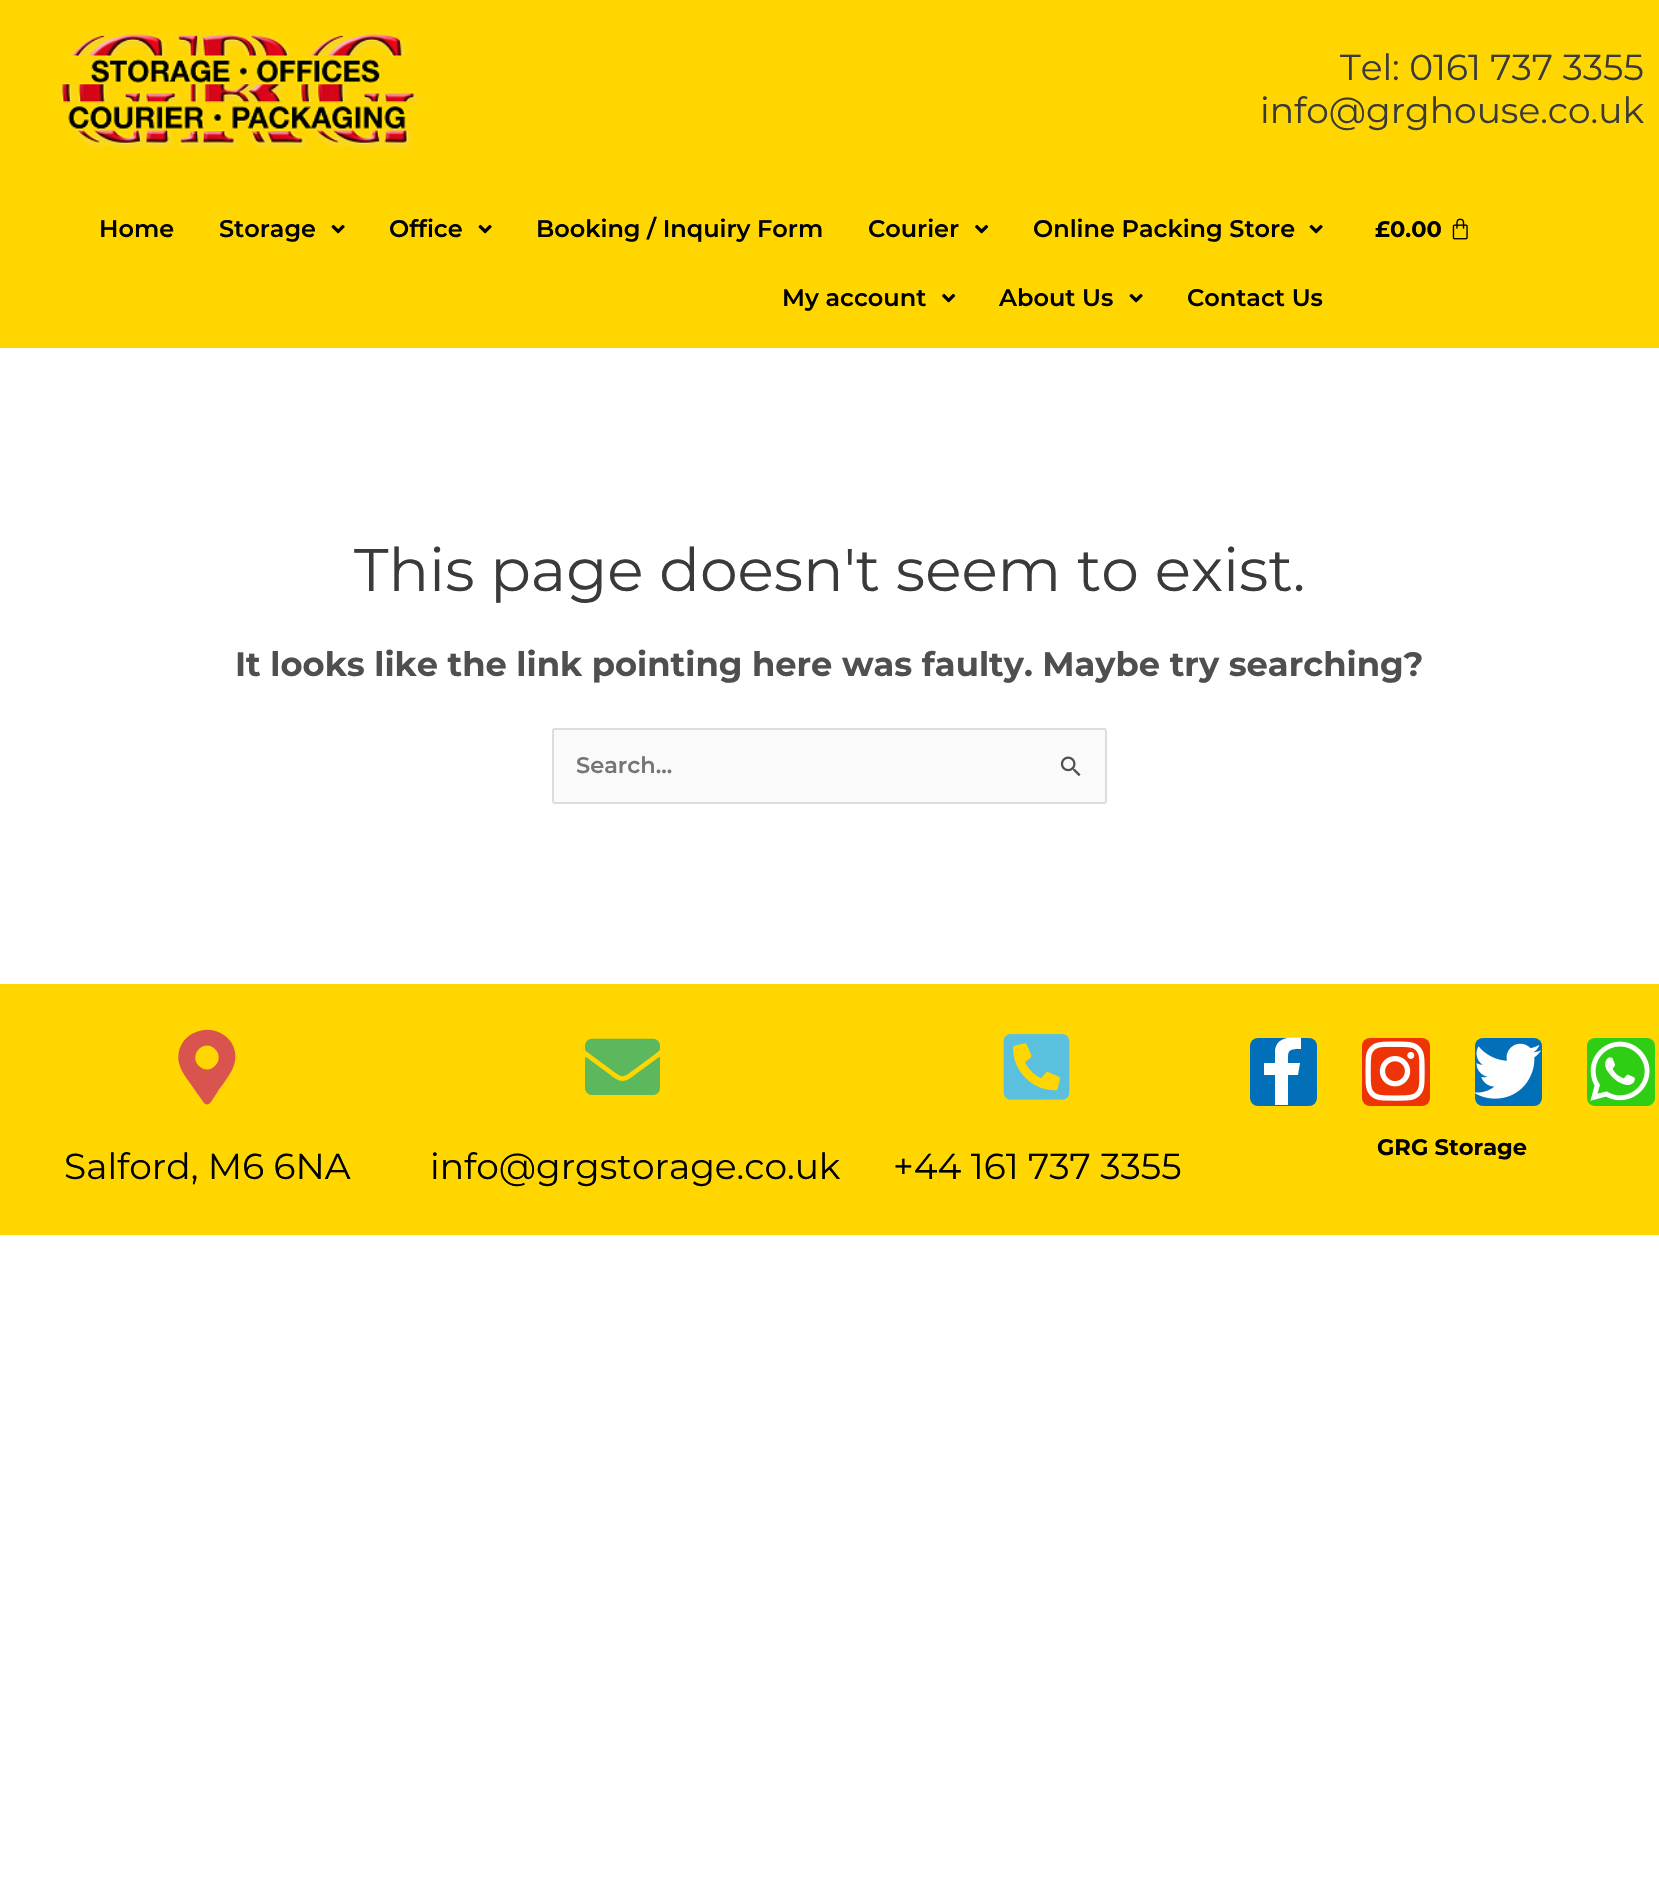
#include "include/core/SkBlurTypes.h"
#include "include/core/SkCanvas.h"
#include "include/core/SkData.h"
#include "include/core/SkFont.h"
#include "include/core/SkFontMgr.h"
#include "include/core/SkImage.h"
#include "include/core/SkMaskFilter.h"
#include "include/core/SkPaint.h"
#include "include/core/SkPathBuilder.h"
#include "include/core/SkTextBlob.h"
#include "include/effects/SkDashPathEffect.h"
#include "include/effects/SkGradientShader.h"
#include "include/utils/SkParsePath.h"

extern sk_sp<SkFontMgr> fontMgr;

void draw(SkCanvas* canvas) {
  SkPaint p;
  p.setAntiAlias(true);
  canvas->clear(SK_ColorWHITE);
  p.setColor(SkColorSetRGB(255, 214, 0));
  canvas->drawRect(SkRect::MakeLTRB(0, 0, 1659, 348), p);
  canvas->drawImageRect(SkImages::DeferredFromEncodedData(SkData::MakeFromFileName("images/1.png")), SkRect::MakeLTRB(59, 32, 420, 150), SkSamplingOptions());
  canvas->drawImageRect(SkImages::DeferredFromEncodedData(SkData::MakeFromFileName("images/2.png")), SkRect::MakeLTRB(331, 224, 345, 234), SkSamplingOptions());
  canvas->drawImageRect(SkImages::DeferredFromEncodedData(SkData::MakeFromFileName("images/2.png")), SkRect::MakeLTRB(478, 224, 492, 234), SkSamplingOptions());
  canvas->drawImageRect(SkImages::DeferredFromEncodedData(SkData::MakeFromFileName("images/3.png")), SkRect::MakeLTRB(975, 224, 989, 234), SkSamplingOptions());
  canvas->drawImageRect(SkImages::DeferredFromEncodedData(SkData::MakeFromFileName("images/2.png")), SkRect::MakeLTRB(1309, 224, 1323, 234), SkSamplingOptions());
  canvas->drawImageRect(SkImages::DeferredFromEncodedData(SkData::MakeFromFileName("images/3.png")), SkRect::MakeLTRB(942, 293, 956, 303), SkSamplingOptions());
  canvas->drawImageRect(SkImages::DeferredFromEncodedData(SkData::MakeFromFileName("images/2.png")), SkRect::MakeLTRB(1129, 293, 1143, 303), SkSamplingOptions());
  canvas->drawImageRect(SkImages::DeferredFromEncodedData(SkData::MakeFromFileName("images/4.png")), SkRect::MakeLTRB(1452, 218, 1468, 240), SkSamplingOptions());
  p.setColor(SkColorSetRGB(250, 250, 250));
  canvas->drawRoundRect(SkRect::MakeLTRB(553, 729, 1106, 803), 2, 2, p);
  p.setStyle(SkPaint::kStroke_Style);
  p.setStrokeWidth(2);
  p.setColor(SkColorSetRGB(221, 221, 221));
  canvas->drawRoundRect(SkRect::MakeLTRB(553, 729, 1106, 803), 2, 2, p);
  canvas->drawImageRect(SkImages::DeferredFromEncodedData(SkData::MakeFromFileName("images/5.png")), SkRect::MakeLTRB(1060, 756, 1081, 777), SkSamplingOptions());
  p.setStyle(SkPaint::kFill_Style);
  p.setColor(SkColorSetRGB(255, 214, 0));
  canvas->drawRect(SkRect::MakeLTRB(0, 984, 1659, 1235), p);
  p.setColor(SkColorSetRGB(1, 112, 185));
  canvas->drawRoundRect(SkRect::MakeLTRB(1250, 1038, 1317, 1106), 8, 8, p);
  p.setColor(SK_ColorWHITE);
  canvas->drawPath(SkPathBuilder().moveTo(1298, 1075).lineTo(1288, 1075).lineTo(1288, 1105).lineTo(1275, 1105).lineTo(1275, 1075).lineTo(1264, 1075).lineTo(1264, 1063).lineTo(1275, 1063).lineTo(1275, 1050).cubicTo(1277, 1037, 1290, 1037, 1301, 1038).lineTo(1301, 1049).cubicTo(1287, 1049, 1288, 1051, 1288, 1063).lineTo(1300, 1063).close().detach(), p);
  p.setColor(SkColorSetRGB(238, 52, 7));
  canvas->drawRoundRect(SkRect::MakeLTRB(1362, 1038, 1430, 1106), 8, 8, p);
  canvas->drawImageRect(SkImages::DeferredFromEncodedData(SkData::MakeFromFileName("images/6.png")), SkRect::MakeLTRB(1365, 1041, 1425, 1101), SkSamplingOptions());
  p.setColor(SkColorSetRGB(1, 112, 185));
  canvas->drawRoundRect(SkRect::MakeLTRB(1475, 1038, 1542, 1106), 8, 8, p);
  canvas->drawImageRect(SkImages::DeferredFromEncodedData(SkData::MakeFromFileName("images/7.png")), SkRect::MakeLTRB(1473, 1043, 1542, 1099), SkSamplingOptions());
  p.setColor(SkColorSetRGB(45, 206, 20));
  canvas->drawRoundRect(SkRect::MakeLTRB(1587, 1038, 1655, 1106), 8, 8, p);
  canvas->drawImageRect(SkImages::DeferredFromEncodedData(SkData::MakeFromFileName("images/8.png")), SkRect::MakeLTRB(1590, 1041, 1650, 1101), SkSamplingOptions());
  p.setColor(SkColorSetRGB(217, 83, 79));
  canvas->drawPath(SkPathBuilder().moveTo(204, 1103).lineTo(192, 1086).cubicTo(187, 1079, 181, 1071, 179, 1063).cubicTo(173, 1033, 213, 1017, 231, 1042).cubicTo(243, 1061, 228, 1077, 218, 1091).cubicTo(216, 1094, 211, 1103, 209, 1104).cubicTo(207, 1105, 205, 1104, 204, 1103).close().moveTo(199, 1066).cubicTo(210, 1077, 226, 1060, 215, 1049).cubicTo(204, 1038, 188, 1055, 199, 1066).close().detach(), p);
  canvas->drawImageRect(SkImages::DeferredFromEncodedData(SkData::MakeFromFileName("images/9.png")), SkRect::MakeLTRB(585, 1038, 660, 1095), SkSamplingOptions());
  canvas->drawImageRect(SkImages::DeferredFromEncodedData(SkData::MakeFromFileName("images/10.png")), SkRect::MakeLTRB(1003, 1034, 1070, 1100), SkSamplingOptions());
  SkFont font1(fontMgr->matchFamilyStyle("Montserrat", SkFontStyle::Normal()), 36);
  font1.setSubpixel(true);
  p.setColor(SkColorSetRGB(58, 58, 58));
  canvas->drawString("Tel: 0161 737 3355", 1340, 80, font1, p);
  canvas->drawString("info@grghouse.co.uk", 1260, 123, font1, p);
  SkFont font2(fontMgr->matchFamilyStyle("Montserrat", SkFontStyle(600, SkFontStyle::kNormal_Width, SkFontStyle::kUpright_Slant)), 24);
  font2.setSubpixel(true);
  p.setColor(SK_ColorBLACK);
  canvas->drawString("Home", 99, 237, font2, p);
  canvas->drawString("Storage", 219, 237, font2, p);
  canvas->drawString("Office", 389, 237, font2, p);
  canvas->drawString("Booking / Inquiry Form", 536, 237, font2, p);
  canvas->drawString("Courier", 868, 237, font2, p);
  canvas->drawString("Online Packing Store", 1033, 237, font2, p);
  canvas->drawString("My account", 782, 306, font2, p);
  canvas->drawString("About Us", 999, 306, font2, p);
  canvas->drawString("Contact Us", 1187, 306, font2, p);
  SkFont font3(fontMgr->matchFamilyStyle("Montserrat", SkFontStyle::Bold()), 22.5f);
  font3.setSubpixel(true);
  canvas->drawString("£0.00", 1375, 237, font3, p);
  SkFont font4(fontMgr->matchFamilyStyle("Montserrat", SkFontStyle::Normal()), 60);
  font4.setSubpixel(true);
  p.setColor(SkColorSetRGB(58, 58, 58));
  canvas->drawString("This page doesn't seem to exist.", 354, 591, font4, p);
  SkFont font5(fontMgr->matchFamilyStyle("Montserrat", SkFontStyle::Bold()), 33.75f);
  font5.setSubpixel(true);
  p.setColor(SkColorSetRGB(79, 79, 79));
  canvas->drawString("It looks like the link pointing here was faulty. Maybe try searching?", 235, 676, font5, p);
  SkFont font6(fontMgr->matchFamilyStyle("Montserrat", SkFontStyle(600, SkFontStyle::kNormal_Width, SkFontStyle::kUpright_Slant)), 22.5f);
  font6.setSubpixel(true);
  p.setColor(SkColorSetRGB(117, 117, 117));
  canvas->drawString("Search...", 576, 773, font6, p);
  p.setColor(SK_ColorBLACK);
  canvas->drawString("GRG Storage", 1377, 1155, font3, p);
  canvas->drawString("Salford, M6 6NA", 64, 1179, font1, p);
  canvas->drawString("info@grgstorage.co.uk", 430, 1179, font1, p);
  canvas->drawString("+44 161 737 3355", 893, 1179, font1, p);
}
